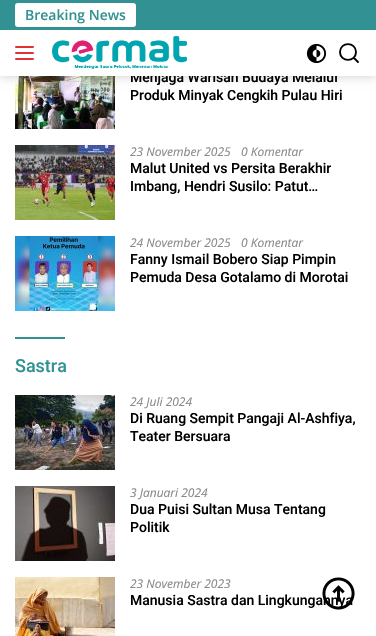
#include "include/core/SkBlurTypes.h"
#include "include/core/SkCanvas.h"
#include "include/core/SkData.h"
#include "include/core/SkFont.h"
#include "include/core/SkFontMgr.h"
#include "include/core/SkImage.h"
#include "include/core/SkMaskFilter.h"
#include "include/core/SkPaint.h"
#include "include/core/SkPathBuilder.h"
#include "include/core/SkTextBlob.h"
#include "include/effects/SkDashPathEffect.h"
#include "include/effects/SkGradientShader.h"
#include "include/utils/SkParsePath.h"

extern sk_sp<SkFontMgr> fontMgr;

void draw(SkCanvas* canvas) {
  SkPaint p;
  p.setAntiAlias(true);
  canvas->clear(SK_ColorWHITE);
  canvas->drawImageRect(SkImages::DeferredFromEncodedData(SkData::MakeFromFileName("images/3.png")), SkRect::MakeLTRB(15, 76, 115, 129), SkSamplingOptions());
  p.setColor(SkColorSetARGB(51, 0, 0, 0));
  p.setMaskFilter(SkMaskFilter::MakeBlur(kNormal_SkBlurStyle, 5));
  canvas->drawRect(SkRect::MakeLTRB(0, 0, 376, 76), p);
  p.setMaskFilter(nullptr);
  p.setColor(SkColorSetRGB(50, 146, 147));
  canvas->drawRect(SkRect::MakeLTRB(0, 0, 376, 30), p);
  p.setColor(SK_ColorWHITE);
  canvas->drawRoundRect(SkRect::MakeLTRB(15, 3, 136, 27), 3, 3, p);
  canvas->drawImageRect(SkImages::DeferredFromEncodedData(SkData::MakeFromFileName("images/4.png")), SkRect::MakeLTRB(15, 145, 115, 220), SkSamplingOptions());
  canvas->drawImageRect(SkImages::DeferredFromEncodedData(SkData::MakeFromFileName("images/5.png")), SkRect::MakeLTRB(15, 236, 115, 311), SkSamplingOptions());
  p.setColor(SkColorSetRGB(50, 146, 147));
  canvas->drawRect(SkRect::MakeLTRB(15, 337, 65, 339), p);
  canvas->drawImageRect(SkImages::DeferredFromEncodedData(SkData::MakeFromFileName("images/6.png")), SkRect::MakeLTRB(15, 395, 115, 470), SkSamplingOptions());
  canvas->drawImageRect(SkImages::DeferredFromEncodedData(SkData::MakeFromFileName("images/7.png")), SkRect::MakeLTRB(15, 486, 115, 561), SkSamplingOptions());
  canvas->drawImageRect(SkImages::DeferredFromEncodedData(SkData::MakeFromFileName("images/8.png")), SkRect::MakeLTRB(15, 577, 115, 636), SkSamplingOptions());
  SkFont font1(fontMgr->matchFamilyStyle("Open Sans", SkFontStyle(600, SkFontStyle::kNormal_Width, SkFontStyle::kUpright_Slant)), 14);
  font1.setSubpixel(true);
  canvas->drawString("Breaking News", 25, 20, font1, p);
  SkFont font2(fontMgr->matchFamilyStyle("Roboto", SkFontStyle(500, SkFontStyle::kNormal_Width, SkFontStyle::kUpright_Slant)), 14);
  font2.setSubpixel(true);
  p.setColor(SK_ColorBLACK);
  canvas->drawString("Menjaga Warisan Budaya Melalui", 130, 82, font2, p);
  p.setColor(SK_ColorWHITE);
  canvas->drawRect(SkRect::MakeLTRB(0, 30, 376, 76), p);
  p.setStyle(SkPaint::kStroke_Style);
  p.setStrokeWidth(1.9f);
  p.setStrokeCap(SkPaint::kRound_Cap);
  p.setColor(SK_ColorBLACK);
  canvas->drawPath(SkPathBuilder().moveTo(358, 62).lineTo(354, 58).moveTo(356, 52).cubicTo(356, 62.5f, 340, 62.5f, 340, 52).cubicTo(340, 41.5f, 356, 41.5f, 356, 52).close().detach(), p);
  p.setStyle(SkPaint::kFill_Style);
  p.setColor(SkColorSetRGB(221, 51, 51));
  canvas->drawRoundRect(SkRect::MakeLTRB(15, 58, 34, 60), 1, 1, p);
  canvas->drawRoundRect(SkRect::MakeLTRB(15, 52, 34, 54), 1, 1, p);
  canvas->drawRoundRect(SkRect::MakeLTRB(15, 46, 34, 48), 1, 1, p);
  canvas->drawImageRect(SkImages::DeferredFromEncodedData(SkData::MakeFromFileName("images/2.png")), SkRect::MakeLTRB(306, 43, 327, 64), SkSamplingOptions());
  canvas->drawImageRect(SkImages::DeferredFromEncodedData(SkData::MakeFromFileName("images/1.png")), SkRect::MakeLTRB(52, 36, 187, 69), SkSamplingOptions());
  p.setColor(SK_ColorBLACK);
  canvas->drawString("Produk Minyak Cengkih Pulau Hiri", 130, 100, font2, p);
  SkFont font3(fontMgr->matchFamilyStyle("Open Sans", SkFontStyle::Italic()), 12);
  font3.setSubpixel(true);
  p.setColor(SkColorSetRGB(136, 136, 136));
  canvas->drawString("23 November 2025", 130, 156, font3, p);
  canvas->drawString("0 Komentar", 241, 156, font3, p);
  p.setColor(SK_ColorBLACK);
  canvas->drawString("Malut United vs Persita Berakhir", 130, 173, font2, p);
  canvas->drawString("Imbang, Hendri Susilo: Patut…", 130, 191, font2, p);
  p.setColor(SkColorSetRGB(136, 136, 136));
  canvas->drawString("24 November 2025", 130, 247, font3, p);
  canvas->drawString("0 Komentar", 241, 247, font3, p);
  p.setColor(SK_ColorBLACK);
  canvas->drawString("Fanny Ismail Bobero Siap Pimpin", 130, 264, font2, p);
  canvas->drawString("Pemuda Desa Gotalamo di Morotai", 130, 282, font2, p);
  SkFont font4(fontMgr->matchFamilyStyle("Roboto", SkFontStyle(500, SkFontStyle::kNormal_Width, SkFontStyle::kUpright_Slant)), 18);
  font4.setSubpixel(true);
  p.setColor(SkColorSetRGB(50, 146, 147));
  canvas->drawString("Sastra", 15, 372, font4, p);
  p.setColor(SkColorSetRGB(136, 136, 136));
  canvas->drawString("24 Juli 2024", 130, 406, font3, p);
  p.setColor(SK_ColorBLACK);
  canvas->drawString("Di Ruang Sempit Pangaji Al-Ashfiya,", 130, 423, font2, p);
  canvas->drawString("Teater Bersuara", 130, 441, font2, p);
  p.setColor(SkColorSetRGB(136, 136, 136));
  canvas->drawString("3 Januari 2024", 130, 497, font3, p);
  p.setColor(SK_ColorBLACK);
  canvas->drawString("Dua Puisi Sultan Musa Tentang", 130, 514, font2, p);
  canvas->drawString("Politik", 130, 532, font2, p);
  p.setColor(SkColorSetRGB(136, 136, 136));
  canvas->drawString("23 November 2023", 130, 588, font3, p);
  p.setColor(SK_ColorBLACK);
  canvas->drawString("Manusia Sastra dan Lingkungannya", 130, 605, font2, p);
  canvas->drawImageRect(SkImages::DeferredFromEncodedData(SkData::MakeFromFileName("images/9.png")), SkRect::MakeLTRB(322, 577, 355, 610), SkSamplingOptions());
}
